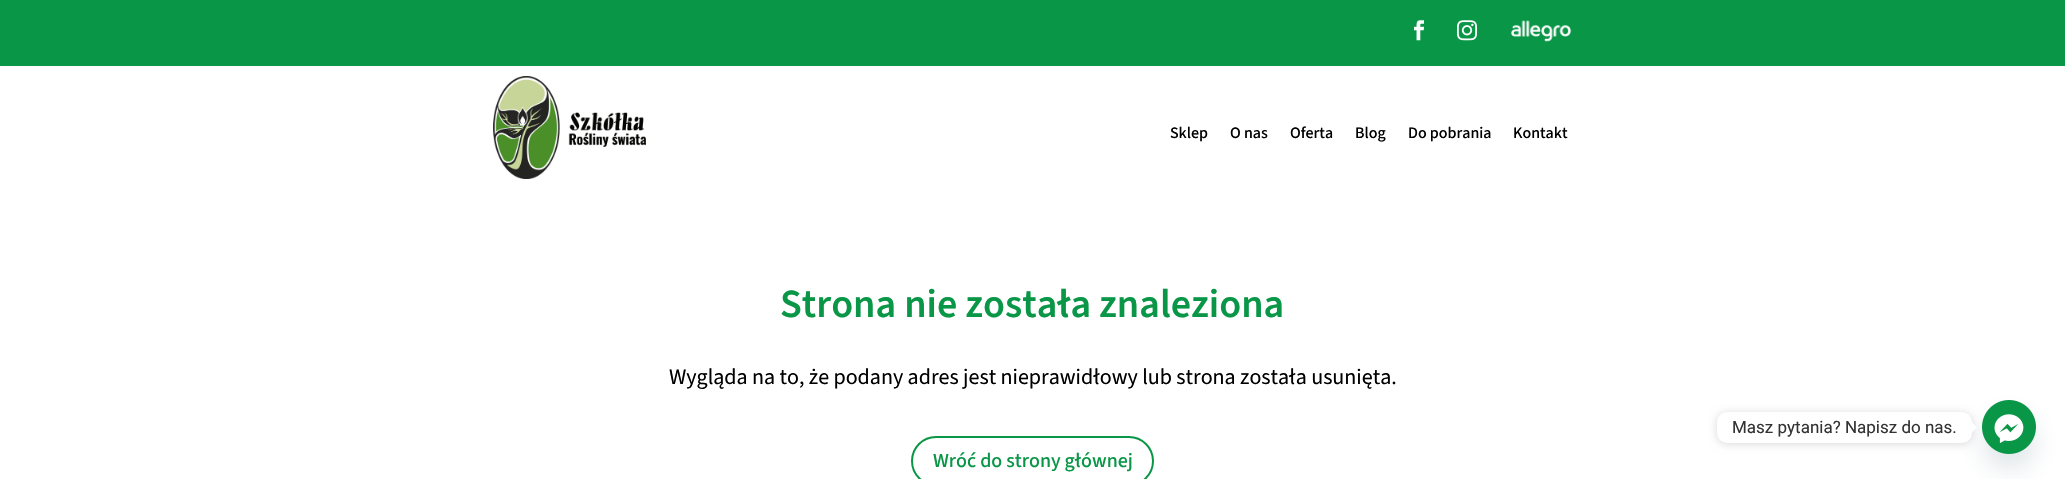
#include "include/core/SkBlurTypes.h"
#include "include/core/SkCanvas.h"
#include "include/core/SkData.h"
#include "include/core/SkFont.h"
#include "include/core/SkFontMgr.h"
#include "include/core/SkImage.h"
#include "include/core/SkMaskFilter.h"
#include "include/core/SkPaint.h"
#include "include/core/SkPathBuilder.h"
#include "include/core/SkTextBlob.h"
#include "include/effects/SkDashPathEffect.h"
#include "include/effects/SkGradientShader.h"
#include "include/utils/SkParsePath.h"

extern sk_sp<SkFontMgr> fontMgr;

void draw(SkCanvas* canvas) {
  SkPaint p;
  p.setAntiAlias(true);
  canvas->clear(SK_ColorWHITE);
  p.setColor(SkColorSetRGB(9, 150, 71));
  canvas->drawRect(SkRect::MakeLTRB(0, 0, 2065, 66), p);
  canvas->drawImageRect(SkImages::DeferredFromEncodedData(SkData::MakeFromFileName("images/1.png")), SkRect::MakeLTRB(1414, 20, 1424, 41), SkSamplingOptions());
  canvas->drawImageRect(SkImages::DeferredFromEncodedData(SkData::MakeFromFileName("images/2.png")), SkRect::MakeLTRB(1457, 20, 1477, 41), SkSamplingOptions());
  canvas->drawImageRect(SkImages::DeferredFromEncodedData(SkData::MakeFromFileName("images/3.png")), SkRect::MakeLTRB(1511, 20, 1572, 42), SkSamplingOptions());
  canvas->drawImageRect(SkImages::DeferredFromEncodedData(SkData::MakeFromFileName("images/4.png")), SkRect::MakeLTRB(493, 76, 646, 179), SkSamplingOptions());
  p.setStyle(SkPaint::kStroke_Style);
  p.setStrokeWidth(2);
  canvas->drawRoundRect(SkRect::MakeLTRB(912, 437, 1153, 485), 24, 24, p);
  p.setStyle(SkPaint::kFill_Style);
  p.setColor(SkColorSetARGB(41, 73, 104, 126));
  p.setMaskFilter(SkMaskFilter::MakeBlur(kNormal_SkBlurStyle, 12));
  canvas->drawRoundRect(SkRect::MakeLTRB(1982, 416, 2036, 470), 27, 27, p);
  p.setMaskFilter(nullptr);
  canvas->drawImageRect(SkImages::DeferredFromEncodedData(SkData::MakeFromFileName("images/5.png")), SkRect::MakeLTRB(1982, 400, 2036, 454), SkSamplingOptions());
  p.setColor(SkColorSetARGB(38, 0, 0, 0));
  p.setMaskFilter(SkMaskFilter::MakeBlur(kNormal_SkBlurStyle, 4));
  canvas->drawRoundRect(SkRect::MakeLTRB(1717, 413, 1972, 444), 10, 10, p);
  p.setMaskFilter(nullptr);
  p.setColor(SK_ColorWHITE);
  canvas->drawRoundRect(SkRect::MakeLTRB(1717, 412, 1972, 443), 10, 10, p);
  canvas->drawPath(SkPathBuilder().moveTo(1972, 432.5f).lineTo(1972, 422.5f).lineTo(1977, 427.5f).close().detach(), p);
  SkFont font1(fontMgr->matchFamilyStyle("Source Sans 3", SkFontStyle(500, SkFontStyle::kNormal_Width, SkFontStyle::kUpright_Slant)), 16);
  font1.setSubpixel(true);
  p.setColor(SK_ColorBLACK);
  canvas->drawString("Sklep", 1170, 138, font1, p);
  canvas->drawString("O nas", 1230, 138, font1, p);
  canvas->drawString("Oferta", 1290, 138, font1, p);
  canvas->drawString("Blog", 1355, 138, font1, p);
  canvas->drawString("Do pobrania", 1408, 138, font1, p);
  canvas->drawString("Kontakt", 1513, 138, font1, p);
  SkFont font2(fontMgr->matchFamilyStyle("Source Sans 3", SkFontStyle(600, SkFontStyle::kNormal_Width, SkFontStyle::kUpright_Slant)), 40);
  font2.setSubpixel(true);
  p.setColor(SkColorSetRGB(9, 150, 71));
  canvas->drawString("Strona nie została znaleziona", 780, 317, font2, p);
  SkFont font3(fontMgr->matchFamilyStyle("Source Sans 3", SkFontStyle::Normal()), 22);
  font3.setSubpixel(true);
  p.setColor(SK_ColorBLACK);
  canvas->drawString("Wygląda na to, że podany adres jest nieprawidłowy lub strona została usunięta.", 669, 384, font3, p);
  SkFont font4(fontMgr->matchFamilyStyle("Source Sans 3", SkFontStyle(500, SkFontStyle::kNormal_Width, SkFontStyle::kUpright_Slant)), 20);
  font4.setSubpixel(true);
  p.setColor(SkColorSetRGB(9, 150, 71));
  canvas->drawString("Wróć do strony głównej", 933, 467, font4, p);
  SkFont font5(fontMgr->matchFamilyStyle("Roboto", SkFontStyle::Normal()), 17);
  font5.setSubpixel(true);
  p.setColor(SkColorSetRGB(51, 51, 51));
  canvas->drawString("Masz pytania? Napisz do nas.", 1732, 433, font5, p);
}
